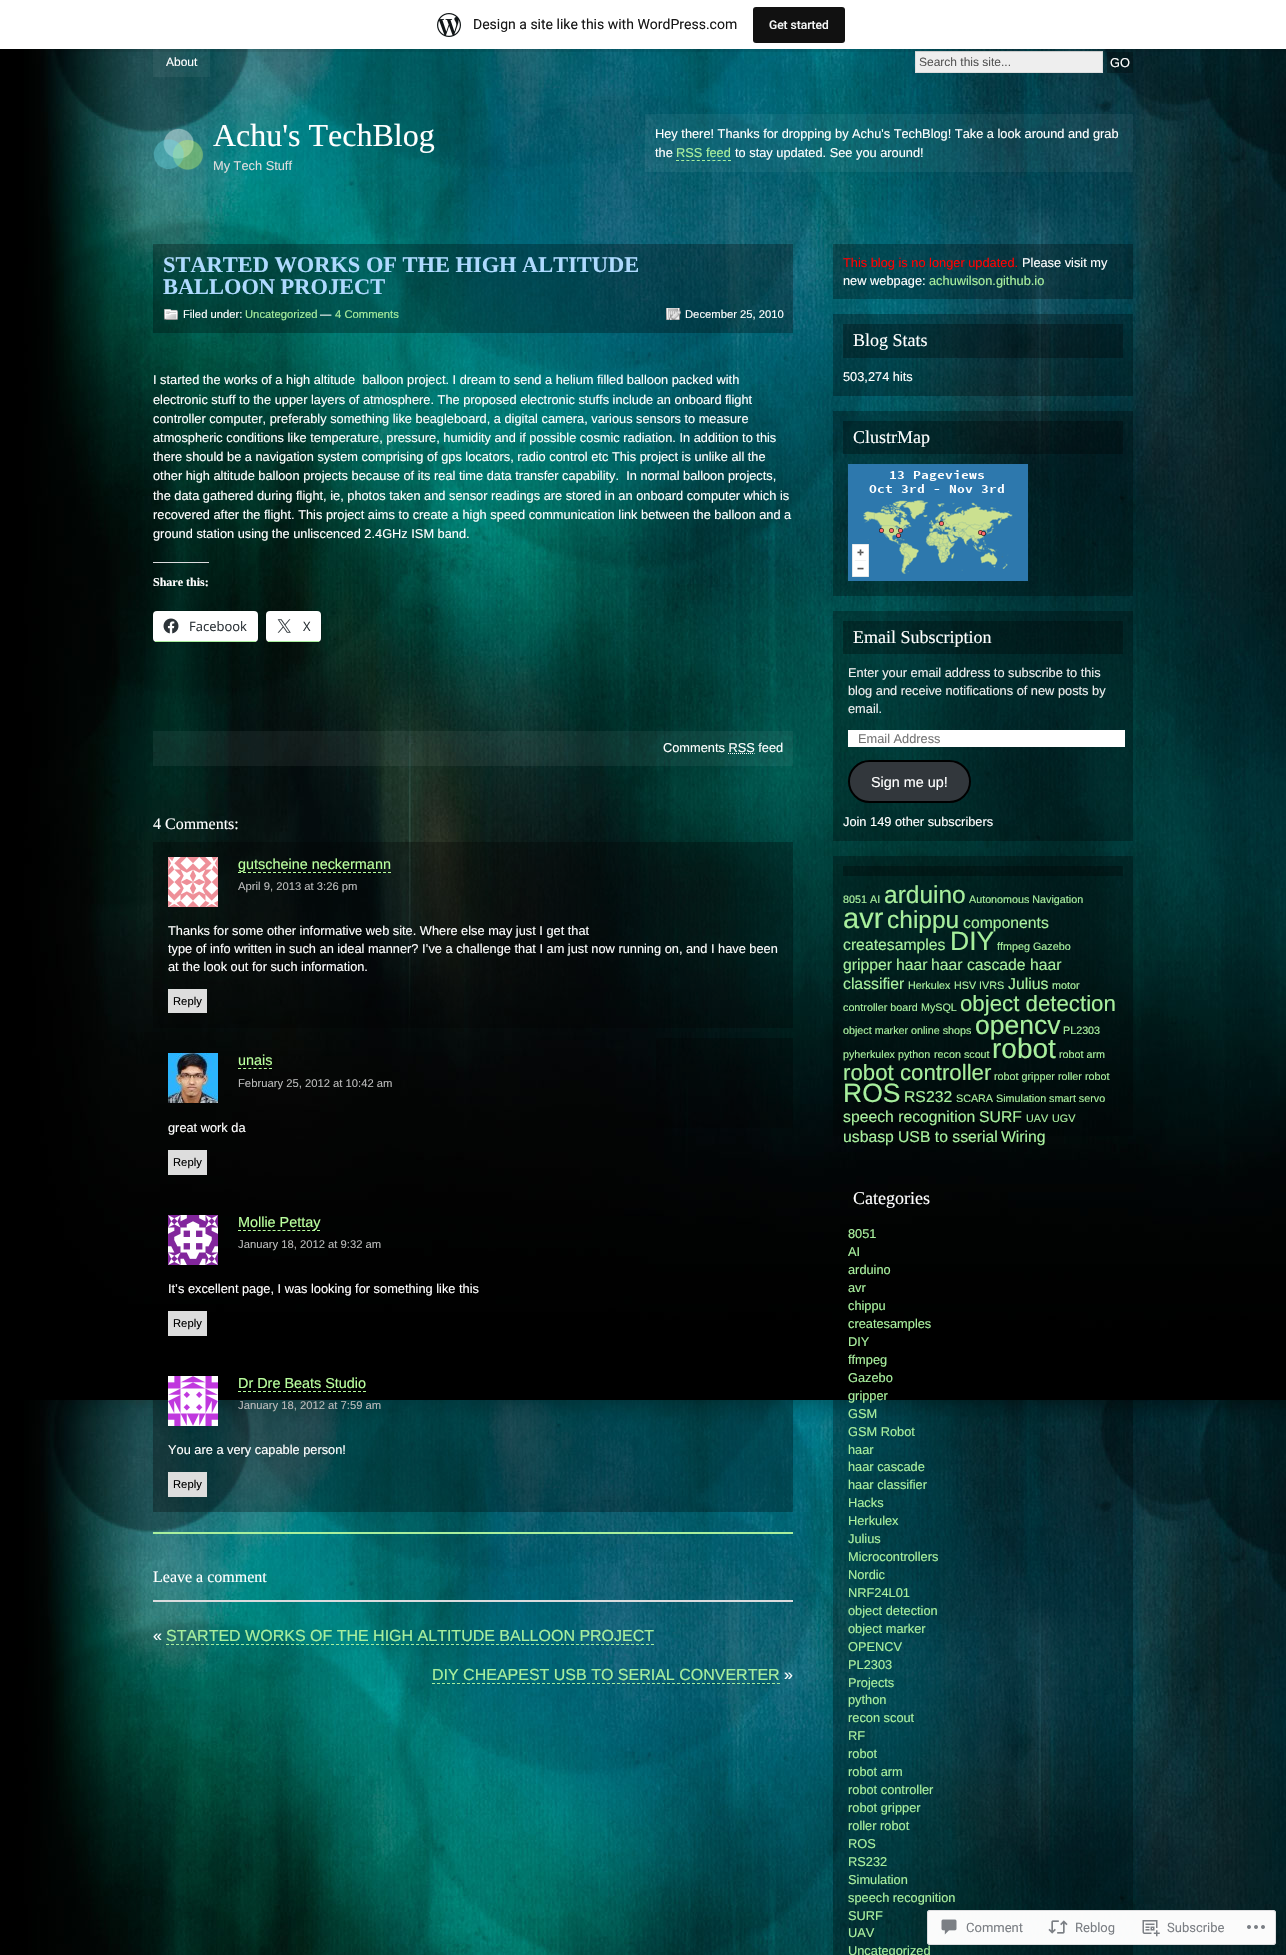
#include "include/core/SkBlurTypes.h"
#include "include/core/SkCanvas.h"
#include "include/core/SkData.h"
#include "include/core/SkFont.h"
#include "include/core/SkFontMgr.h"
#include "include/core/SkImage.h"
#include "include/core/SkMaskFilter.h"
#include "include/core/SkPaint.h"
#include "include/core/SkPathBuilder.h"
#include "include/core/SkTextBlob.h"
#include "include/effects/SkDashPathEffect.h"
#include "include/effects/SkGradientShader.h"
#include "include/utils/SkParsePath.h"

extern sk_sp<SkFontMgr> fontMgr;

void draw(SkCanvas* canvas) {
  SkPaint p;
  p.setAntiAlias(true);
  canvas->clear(SK_ColorWHITE);
  canvas->drawImageRect(SkImages::DeferredFromEncodedData(SkData::MakeFromFileName("images/1.png")), SkRect::MakeLTRB(0, 49, 1286, 1955), SkSamplingOptions());
  p.setColor(SkColorSetARGB(13, 255, 255, 255));
  canvas->drawRect(SkRect::MakeLTRB(153, 49, 210, 77), p);
  p.setColor(SkColorSetRGB(238, 238, 238));
  canvas->drawRect(SkRect::MakeLTRB(915.5f, 51.5f, 1102.5f, 72.5f), p);
  p.setStyle(SkPaint::kStroke_Style);
  p.setStrokeWidth(1);
  p.setColor(SkColorSetRGB(221, 221, 221));
  canvas->drawRect(SkRect::MakeLTRB(915.5f, 51.5f, 1102.5f, 72.5f), p);
  p.setStyle(SkPaint::kFill_Style);
  p.setColor(SkColorSetARGB(77, 0, 0, 0));
  canvas->drawRect(SkRect::MakeLTRB(1107, 52, 1133, 73), p);
  p.setColor(SkColorSetARGB(13, 0, 0, 0));
  p.setMaskFilter(SkMaskFilter::MakeBlur(kNormal_SkBlurStyle, 1));
  canvas->drawRect(SkRect::MakeLTRB(0, 1, 1286, 50), p);
  p.setMaskFilter(nullptr);
  p.setColor(SkColorSetARGB(20, 0, 0, 0));
  canvas->drawPath(SkPathBuilder().moveTo(1, 49).lineTo(1, 52).lineTo(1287, 52).lineTo(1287, 3).lineTo(1286, 3).lineTo(1286, 49).close().detach(), p);
  p.setColor(SK_ColorWHITE);
  canvas->drawRect(SkRect::MakeLTRB(0, 0, 1286, 49), p);
  canvas->drawImageRect(SkImages::DeferredFromEncodedData(SkData::MakeFromFileName("images/2.png")), SkRect::MakeLTRB(437, 13, 461, 37), SkSamplingOptions());
  p.setColor(SkColorSetRGB(17, 17, 17));
  canvas->drawRoundRect(SkRect::MakeLTRB(753, 7, 845, 43), 3, 3, p);
  canvas->drawImageRect(SkImages::DeferredFromEncodedData(SkData::MakeFromFileName("images/3.png")), SkRect::MakeLTRB(153, 128, 203, 170), SkSamplingOptions());
  p.setColor(SkColorSetARGB(13, 255, 255, 255));
  canvas->drawRect(SkRect::MakeLTRB(645, 114, 1133, 172), p);
  p.setStyle(SkPaint::kStroke_Style);
  p.setColor(SkColorSetRGB(168, 239, 157));
  p.setPathEffect(SkDashPathEffect::Make({{3, 2.2f}}, 0));
  canvas->drawPath(SkPathBuilder().moveTo(676, 160.5f).lineTo(731, 160.5f).detach(), p);
  p.setPathEffect(nullptr);
  p.setStyle(SkPaint::kFill_Style);
  p.setColor(SkColorSetARGB(77, 0, 0, 0));
  canvas->drawRect(SkRect::MakeLTRB(153, 244, 793, 333), p);
  canvas->drawImageRect(SkImages::DeferredFromEncodedData(SkData::MakeFromFileName("images/4.png")), SkRect::MakeLTRB(164, 309, 178, 320), SkSamplingOptions());
  canvas->drawImageRect(SkImages::DeferredFromEncodedData(SkData::MakeFromFileName("images/5.png")), SkRect::MakeLTRB(666, 308, 681, 320), SkSamplingOptions());
  p.setColor(SkColorSetRGB(220, 220, 222));
  canvas->drawRect(SkRect::MakeLTRB(153, 562, 209, 563), p);
  canvas->save();
  canvas->clipRect(SkRect::MakeLTRB(153, 244, 793, 1700));
  p.setStyle(SkPaint::kStroke_Style);
  p.setColor(SkColorSetARGB(31, 0, 0, 0));
  canvas->drawRoundRect(SkRect::MakeLTRB(152.5f, 610.5f, 258.5f, 642.5f), 4.5f, 4.5f, p);
  canvas->restore();
  p.setStyle(SkPaint::kFill_Style);
  p.setColor(SK_ColorWHITE);
  canvas->drawRoundRect(SkRect::MakeLTRB(153, 611, 258, 642), 4, 4, p);
  p.setColor(SkColorSetRGB(168, 239, 157));
  canvas->drawRect(SkRect::MakeLTRB(155, 641, 256, 642), p);
  canvas->drawImageRect(SkImages::DeferredFromEncodedData(SkData::MakeFromFileName("images/6.png")), SkRect::MakeLTRB(163, 618, 179, 634), SkSamplingOptions());
  p.setStyle(SkPaint::kStroke_Style);
  p.setColor(SkColorSetARGB(31, 0, 0, 0));
  canvas->drawRoundRect(SkRect::MakeLTRB(265.5f, 610.5f, 321.5f, 642.5f), 4.5f, 4.5f, p);
  p.setStyle(SkPaint::kFill_Style);
  p.setColor(SK_ColorWHITE);
  canvas->drawRoundRect(SkRect::MakeLTRB(266, 611, 321, 642), 4, 4, p);
  p.setColor(SkColorSetRGB(168, 239, 157));
  canvas->drawRect(SkRect::MakeLTRB(268, 641, 319, 642), p);
  canvas->drawImageRect(SkImages::DeferredFromEncodedData(SkData::MakeFromFileName("images/7.png")), SkRect::MakeLTRB(277, 619, 291, 633), SkSamplingOptions());
  p.setColor(SkColorSetARGB(13, 255, 255, 255));
  canvas->drawRect(SkRect::MakeLTRB(153, 731, 793, 766), p);
  p.setStyle(SkPaint::kStroke_Style);
  p.setColor(SK_ColorWHITE);
  p.setPathEffect(SkDashPathEffect::Make({{1, 1}}, 0));
  canvas->drawPath(SkPathBuilder().moveTo(728, 753.5f).lineTo(754.5f, 753.5f).detach(), p);
  p.setPathEffect(nullptr);
  p.setStyle(SkPaint::kFill_Style);
  p.setColor(SkColorSetARGB(77, 0, 0, 0));
  canvas->drawRect(SkRect::MakeLTRB(153, 842, 793, 1028), p);
  canvas->drawImageRect(SkImages::DeferredFromEncodedData(SkData::MakeFromFileName("images/8.png")), SkRect::MakeLTRB(168, 857, 218, 907), SkSamplingOptions());
  p.setStyle(SkPaint::kStroke_Style);
  p.setColor(SkColorSetRGB(185, 255, 157));
  p.setPathEffect(SkDashPathEffect::Make({{3, 2}}, 0));
  canvas->drawPath(SkPathBuilder().moveTo(238, 872.5f).lineTo(391, 872.5f).detach(), p);
  p.setPathEffect(nullptr);
  p.setStyle(SkPaint::kFill_Style);
  p.setColor(SkColorSetRGB(221, 221, 221));
  canvas->drawRect(SkRect::MakeLTRB(168, 989, 207, 1013), p);
  p.setColor(SkColorSetARGB(77, 0, 0, 0));
  canvas->drawRect(SkRect::MakeLTRB(656, 1038, 793, 1128), p);
  canvas->drawImageRect(SkImages::DeferredFromEncodedData(SkData::MakeFromFileName("images/9.png")), SkRect::MakeLTRB(168, 1053, 218, 1103), SkSamplingOptions());
  p.setStyle(SkPaint::kStroke_Style);
  p.setColor(SkColorSetRGB(185, 255, 157));
  p.setPathEffect(SkDashPathEffect::Make({{3, 2.17f}}, 0));
  canvas->drawPath(SkPathBuilder().moveTo(238, 1068.5f).lineTo(272, 1068.5f).detach(), p);
  p.setPathEffect(nullptr);
  p.setStyle(SkPaint::kFill_Style);
  p.setColor(SkColorSetRGB(221, 221, 221));
  canvas->drawRect(SkRect::MakeLTRB(168, 1150, 207, 1175), p);
  canvas->drawImageRect(SkImages::DeferredFromEncodedData(SkData::MakeFromFileName("images/10.png")), SkRect::MakeLTRB(168, 1215, 218, 1265), SkSamplingOptions());
  p.setStyle(SkPaint::kStroke_Style);
  p.setColor(SkColorSetRGB(185, 255, 157));
  p.setPathEffect(SkDashPathEffect::Make({{3, 1.94f}}, 0));
  canvas->drawPath(SkPathBuilder().moveTo(238, 1230.5f).lineTo(320, 1230.5f).detach(), p);
  p.setPathEffect(nullptr);
  p.setStyle(SkPaint::kFill_Style);
  p.setColor(SkColorSetRGB(221, 221, 221));
  canvas->drawRect(SkRect::MakeLTRB(168, 1311, 207, 1336), p);
  p.setColor(SkColorSetARGB(77, 0, 0, 0));
  canvas->drawRect(SkRect::MakeLTRB(153, 1400, 793, 1512), p);
  canvas->drawImageRect(SkImages::DeferredFromEncodedData(SkData::MakeFromFileName("images/11.png")), SkRect::MakeLTRB(168, 1376, 218, 1426), SkSamplingOptions());
  p.setStyle(SkPaint::kStroke_Style);
  p.setColor(SkColorSetRGB(185, 255, 157));
  p.setPathEffect(SkDashPathEffect::Make({{3, 2}}, 0));
  canvas->drawPath(SkPathBuilder().moveTo(238, 1391.5f).lineTo(366, 1391.5f).detach(), p);
  p.setPathEffect(nullptr);
  p.setStyle(SkPaint::kFill_Style);
  p.setColor(SkColorSetRGB(221, 221, 221));
  canvas->drawRect(SkRect::MakeLTRB(168, 1472, 207, 1497), p);
  p.setColor(SkColorSetRGB(168, 239, 157));
  canvas->drawRect(SkRect::MakeLTRB(153, 1532, 793, 1534), p);
  p.setColor(SkColorSetRGB(220, 220, 222));
  canvas->drawRect(SkRect::MakeLTRB(153, 1600, 793, 1602), p);
  p.setStyle(SkPaint::kStroke_Style);
  p.setColor(SkColorSetRGB(168, 239, 157));
  p.setPathEffect(SkDashPathEffect::Make({{3, 2}}, 0));
  canvas->drawPath(SkPathBuilder().moveTo(166, 1644.5f).lineTo(654, 1644.5f).detach(), p);
  p.setPathEffect(nullptr);
  p.setPathEffect(SkDashPathEffect::Make({{3, 2}}, 0));
  canvas->drawPath(SkPathBuilder().moveTo(432, 1683.5f).lineTo(780, 1683.5f).detach(), p);
  p.setPathEffect(nullptr);
  p.setStyle(SkPaint::kFill_Style);
  p.setColor(SkColorSetARGB(77, 0, 0, 0));
  canvas->drawRect(SkRect::MakeLTRB(833, 244, 1133, 299), p);
  canvas->drawRect(SkRect::MakeLTRB(833, 314, 1133, 396), p);
  canvas->drawRect(SkRect::MakeLTRB(843, 324, 1123, 358), p);
  canvas->drawRect(SkRect::MakeLTRB(833, 411, 1133, 596), p);
  canvas->drawRect(SkRect::MakeLTRB(843, 421, 1123, 454), p);
  canvas->drawImageRect(SkImages::DeferredFromEncodedData(SkData::MakeFromFileName("images/12.png")), SkRect::MakeLTRB(848, 464, 1028, 581), SkSamplingOptions());
  canvas->drawRect(SkRect::MakeLTRB(833, 611, 1133, 841), p);
  canvas->drawRect(SkRect::MakeLTRB(843, 621, 1123, 654), p);
  p.setColor(SK_ColorWHITE);
  canvas->drawRect(SkRect::MakeLTRB(848, 730, 1125, 747), p);
  p.setColor(SkColorSetRGB(50, 55, 60));
  canvas->drawRoundRect(SkRect::MakeLTRB(849, 761, 970, 802), 20.5f, 20.5f, p);
  p.setStyle(SkPaint::kStroke_Style);
  p.setStrokeWidth(2);
  p.setColor(SK_ColorBLACK);
  canvas->drawRoundRect(SkRect::MakeLTRB(849, 761, 970, 802), 20.5f, 20.5f, p);
  p.setStyle(SkPaint::kFill_Style);
  p.setColor(SkColorSetARGB(77, 0, 0, 0));
  canvas->drawRect(SkRect::MakeLTRB(833, 856, 1133, 1136), p);
  canvas->drawRect(SkRect::MakeLTRB(843, 866, 1123, 876), p);
  canvas->drawRect(SkRect::MakeLTRB(833, 1400, 1133, 1955), p);
  p.setColor(SkColorSetARGB(250, 255, 255, 255));
  canvas->drawRoundRect(SkRect::MakeLTRB(927, 1910, 1276, 1945), 3, 3, p);
  p.setStyle(SkPaint::kStroke_Style);
  p.setStrokeWidth(1);
  p.setColor(SkColorSetARGB(250, 220, 220, 222));
  canvas->drawRoundRect(SkRect::MakeLTRB(927.5f, 1910.5f, 1275.5f, 1944.5f), 2.5f, 2.5f, p);
  canvas->drawImageRect(SkImages::DeferredFromEncodedData(SkData::MakeFromFileName("images/13.png")), SkRect::MakeLTRB(941, 1919, 957, 1935), SkSamplingOptions());
  canvas->drawImageRect(SkImages::DeferredFromEncodedData(SkData::MakeFromFileName("images/14.png")), SkRect::MakeLTRB(1048, 1920, 1068, 1934), SkSamplingOptions());
  canvas->drawImageRect(SkImages::DeferredFromEncodedData(SkData::MakeFromFileName("images/15.png")), SkRect::MakeLTRB(1142, 1920, 1160, 1937), SkSamplingOptions());
  canvas->drawImageRect(SkImages::DeferredFromEncodedData(SkData::MakeFromFileName("images/16.png")), SkRect::MakeLTRB(1247, 1925, 1265, 1929), SkSamplingOptions());
  SkFont font1(fontMgr->matchFamilyStyle("Roboto", SkFontStyle::Normal()), 14);
  font1.setSubpixel(true);
  p.setStyle(SkPaint::kFill_Style);
  p.setColor(SkColorSetRGB(23, 23, 23));
  canvas->drawString("Design a site like this with WordPress.com", 473, 29, font1, p);
  SkFont font2(fontMgr->matchFamilyStyle("Roboto", SkFontStyle(500, SkFontStyle::kNormal_Width, SkFontStyle::kUpright_Slant)), 12);
  font2.setSubpixel(true);
  p.setColor(SkColorSetRGB(246, 247, 247));
  canvas->drawString("Get started", 769, 29, font2, p);
  SkFont font3(fontMgr->matchFamilyStyle("Liberation Sans", SkFontStyle::Normal()), 12);
  font3.setSubpixel(true);
  p.setColor(SK_ColorWHITE);
  canvas->drawString("About", 166, 66, font3, p);
  p.setColor(SkColorSetRGB(85, 85, 85));
  canvas->drawString("Search this site...", 919, 66, font3, p);
  SkFont font4(fontMgr->matchFamilyStyle("Liberation Sans", SkFontStyle::Normal()), 12.8f);
  font4.setSubpixel(true);
  p.setColor(SK_ColorWHITE);
  canvas->drawString("GO", 1110, 67, font4, p);
  SkFont font5(fontMgr->matchFamilyStyle("Liberation Serif", SkFontStyle::Normal()), 32);
  font5.setSubpixel(true);
  canvas->drawString("Achu's TechBlog", 213, 146, font5, p);
  p.setColor(SkColorSetRGB(221, 221, 221));
  canvas->drawString("My Tech Stuff", 213, 170, font4, p);
  p.setColor(SK_ColorWHITE);
  canvas->drawString("Hey there! Thanks for dropping by Achu's TechBlog! Take a look around and grab", 655, 138, font4, p);
  canvas->drawString("the", 655, 157, font4, p);
  p.setColor(SkColorSetRGB(168, 239, 157));
  canvas->drawString("RSS feed", 676, 157, font4, p);
  p.setColor(SK_ColorWHITE);
  canvas->drawString("to stay updated. See you around!", 735, 157, font4, p);
  SkFont font6(fontMgr->matchFamilyStyle("Liberation Serif", SkFontStyle::Bold()), 22.4f);
  font6.setSubpixel(true);
  p.setColor(SkColorSetRGB(175, 218, 255));
  canvas->drawString("STARTED WORKS OF THE HIGH ALTITUDE", 163, 272, font6, p);
  canvas->drawString("BALLOON PROJECT", 163, 294, font6, p);
  SkFont font7(fontMgr->matchFamilyStyle("Liberation Sans", SkFontStyle::Normal()), 11.25f);
  font7.setSubpixel(true);
  p.setColor(SK_ColorWHITE);
  canvas->drawString("Filed under:", 183, 318, font7, p);
  p.setColor(SkColorSetRGB(168, 239, 157));
  canvas->drawString("Uncategorized", 245, 318, font7, p);
  p.setColor(SK_ColorWHITE);
  canvas->drawString("—", 320, 318, font7, p);
  p.setColor(SkColorSetRGB(168, 239, 157));
  canvas->drawString("4 Comments", 335, 318, font7, p);
  p.setColor(SK_ColorWHITE);
  canvas->drawString("December 25, 2010", 685, 318, font7, p);
  canvas->drawString("I started the works of a high altitude  balloon project. I dream to send a helium filled balloon packed with", 153, 384, font4, p);
  canvas->drawString("electronic stuff to the upper layers of atmosphere. The proposed electronic stuffs include an onboard flight", 153, 404, font4, p);
  canvas->drawString("controller computer, preferably something like beagleboard, a digital camera, various sensors to measure", 153, 423, font4, p);
  canvas->drawString("atmospheric conditions like temperature, pressure, humidity and if possible cosmic radiation. In addition to this", 153, 442, font4, p);
  canvas->drawString("there should be a navigation system comprising of gps locators, radio control etc This project is unlike all the", 153, 461, font4, p);
  canvas->drawString("other high altitude balloon projects because of its real time data transfer capability.  In normal balloon projects,", 153, 480, font4, p);
  canvas->drawString("the data gathered during flight, ie, photos taken and sensor readings are stored in an onboard computer which is", 153, 500, font4, p);
  canvas->drawString("recovered after the flight. This project aims to create a high speed communication link between the balloon and a", 153, 519, font4, p);
  canvas->drawString("ground station using the unliscenced 2.4GHz ISM band.", 153, 538, font4, p);
  SkFont font8(fontMgr->matchFamilyStyle("Liberation Serif", SkFontStyle::Bold()), 12);
  font8.setSubpixel(true);
  canvas->drawString("Share this:", 153, 586, font8, p);
  SkFont font9(fontMgr->matchFamilyStyle("Open Sans", SkFontStyle::Normal()), 13);
  font9.setSubpixel(true);
  p.setColor(SkColorSetRGB(44, 51, 56));
  canvas->drawString("Facebook", 189, 631, font9, p);
  canvas->drawString("X", 303, 631, font9, p);
  p.setColor(SK_ColorWHITE);
  canvas->drawString("Comments RSS feed", 663, 752, font4, p);
  SkFont font10(fontMgr->matchFamilyStyle("Liberation Serif", SkFontStyle::Normal()), 16);
  font10.setSubpixel(true);
  canvas->drawString("4 Comments:", 153, 829, font10, p);
  SkFont font11(fontMgr->matchFamilyStyle("Liberation Sans", SkFontStyle::Normal()), 14.4f);
  font11.setSubpixel(true);
  p.setColor(SkColorSetRGB(185, 255, 157));
  canvas->drawString("gutscheine neckermann", 238, 869, font11, p);
  p.setColor(SkColorSetRGB(187, 187, 187));
  canvas->drawString("April 9, 2013 at 3:26 pm", 238, 890, font7, p);
  p.setColor(SK_ColorWHITE);
  canvas->drawString("Thanks for some other informative web site. Where else may just I get that", 168, 935, font4, p);
  canvas->drawString("type of info written in such an ideal manner? I’ve a challenge that I am just now running on, and I have been", 168, 953, font4, p);
  canvas->drawString("at the look out for such information.", 168, 971, font4, p);
  p.setColor(SK_ColorBLACK);
  canvas->drawString("Reply", 173, 1005, font7, p);
  p.setColor(SkColorSetRGB(185, 255, 157));
  canvas->drawString("unais", 238, 1065, font11, p);
  p.setColor(SkColorSetRGB(187, 187, 187));
  canvas->drawString("February 25, 2012 at 10:42 am", 238, 1087, font7, p);
  p.setColor(SK_ColorWHITE);
  canvas->drawString("great work da", 168, 1132, font4, p);
  p.setColor(SK_ColorBLACK);
  canvas->drawString("Reply", 173, 1166, font7, p);
  p.setColor(SkColorSetRGB(185, 255, 157));
  canvas->drawString("Mollie Pettay", 238, 1227, font11, p);
  p.setColor(SkColorSetRGB(187, 187, 187));
  canvas->drawString("January 18, 2012 at 9:32 am", 238, 1248, font7, p);
  p.setColor(SK_ColorWHITE);
  canvas->drawString("It’s excellent page, I was looking for something like this", 168, 1293, font4, p);
  p.setColor(SK_ColorBLACK);
  canvas->drawString("Reply", 173, 1327, font7, p);
  p.setColor(SkColorSetRGB(185, 255, 157));
  canvas->drawString("Dr Dre Beats Studio", 238, 1388, font11, p);
  p.setColor(SkColorSetRGB(187, 187, 187));
  canvas->drawString("January 18, 2012 at 7:59 am", 238, 1409, font7, p);
  p.setColor(SK_ColorWHITE);
  canvas->drawString("You are a very capable person!", 168, 1454, font4, p);
  p.setColor(SK_ColorBLACK);
  canvas->drawString("Reply", 173, 1488, font7, p);
  p.setColor(SK_ColorWHITE);
  canvas->drawString("Leave a comment", 153, 1582, font10, p);
  SkFont font12(fontMgr->matchFamilyStyle("Liberation Sans", SkFontStyle::Normal()), 16);
  font12.setSubpixel(true);
  canvas->drawString("«", 153, 1641, font12, p);
  p.setColor(SkColorSetRGB(168, 239, 157));
  canvas->drawString("STARTED WORKS OF THE HIGH ALTITUDE BALLOON PROJECT", 166, 1641, font12, p);
  canvas->drawString("DIY CHEAPEST USB TO SERIAL CONVERTER", 432, 1680, font12, p);
  p.setColor(SK_ColorWHITE);
  canvas->drawString("»", 784, 1680, font12, p);
  p.setColor(SkColorSetRGB(255, 0, 0));
  canvas->drawString("This blog is no longer updated.", 843, 267, font4, p);
  p.setColor(SK_ColorWHITE);
  canvas->drawString("Please visit my", 1022, 267, font4, p);
  canvas->drawString("new webpage:", 843, 285, font4, p);
  p.setColor(SkColorSetRGB(168, 239, 157));
  canvas->drawString("achuwilson.github.io", 929, 285, font4, p);
  SkFont font13(fontMgr->matchFamilyStyle("Liberation Serif", SkFontStyle::Normal()), 18);
  font13.setSubpixel(true);
  p.setColor(SK_ColorWHITE);
  canvas->drawString("Blog Stats", 853, 346, font13, p);
  canvas->drawString("503,274 hits", 843, 381, font4, p);
  canvas->drawString("ClustrMap", 853, 443, font13, p);
  canvas->drawString("Email Subscription", 853, 643, font13, p);
  p.setColor(SkColorSetRGB(238, 238, 238));
  canvas->drawString("Enter your email address to subscribe to this", 848, 677, font4, p);
  canvas->drawString("blog and receive notifications of new posts by", 848, 695, font4, p);
  canvas->drawString("email.", 848, 713, font4, p);
  p.setColor(SkColorSetRGB(117, 117, 117));
  canvas->drawString("Email Address", 858, 743, font4, p);
  p.setColor(SK_ColorWHITE);
  canvas->drawString("Sign me up!", 871, 787, font11, p);
  canvas->drawString("Join 149 other subscribers", 843, 826, font4, p);
  SkFont font14(fontMgr->matchFamilyStyle("Liberation Sans", SkFontStyle::Normal()), 10.75f);
  font14.setSubpixel(true);
  p.setColor(SkColorSetRGB(168, 239, 157));
  canvas->drawString("8051", 843, 903, font14, p);
  canvas->drawString("AI", 870, 903, font14, p);
  SkFont font15(fontMgr->matchFamilyStyle("Liberation Sans", SkFontStyle::Normal()), 24.5f);
  font15.setSubpixel(true);
  canvas->drawString("arduino", 884, 903, font15, p);
  canvas->drawString("Autonomous Navigation", 969, 903, font14, p);
  SkFont font16(fontMgr->matchFamilyStyle("Liberation Sans", SkFontStyle::Normal()), 29);
  font16.setSubpixel(true);
  canvas->drawString("avr", 843, 928, font16, p);
  canvas->drawString("chippu", 887, 928, font15, p);
  SkFont font17(fontMgr->matchFamilyStyle("Liberation Sans", SkFontStyle::Normal()), 15.75f);
  font17.setSubpixel(true);
  canvas->drawString("components", 963, 928, font17, p);
  canvas->drawString("createsamples", 843, 950, font17, p);
  SkFont font18(fontMgr->matchFamilyStyle("Liberation Sans", SkFontStyle::Normal()), 26.5f);
  font18.setSubpixel(true);
  canvas->drawString("DIY", 950, 950, font18, p);
  canvas->drawString("ffmpeg", 997, 950, font14, p);
  canvas->drawString("Gazebo", 1033, 950, font14, p);
  canvas->drawString("gripper", 843, 970, font17, p);
  canvas->drawString("haar", 896, 970, font17, p);
  canvas->drawString("haar cascade", 931, 970, font17, p);
  canvas->drawString("haar", 1030, 970, font17, p);
  canvas->drawString("classifier", 843, 989, font17, p);
  canvas->drawString("Herkulex", 908, 989, font14, p);
  canvas->drawString("HSV", 954, 989, font14, p);
  canvas->drawString("IVRS", 979, 989, font14, p);
  canvas->drawString("Julius", 1008, 989, font17, p);
  canvas->drawString("motor", 1052, 989, font14, p);
  canvas->drawString("controller board", 843, 1011, font14, p);
  canvas->drawString("MySQL", 921, 1011, font14, p);
  SkFont font19(fontMgr->matchFamilyStyle("Liberation Sans", SkFontStyle::Normal()), 22.25f);
  font19.setSubpixel(true);
  canvas->drawString("object detection", 960, 1011, font19, p);
  canvas->drawString("object marker", 843, 1034, font14, p);
  canvas->drawString("online shops", 911, 1034, font14, p);
  canvas->drawString("opencv", 975, 1034, font18, p);
  canvas->drawString("PL2303", 1063, 1034, font14, p);
  canvas->drawString("pyherkulex", 843, 1058, font14, p);
  canvas->drawString("python", 898, 1058, font14, p);
  canvas->drawString("recon scout", 934, 1058, font14, p);
  SkFont font20(fontMgr->matchFamilyStyle("Liberation Sans", SkFontStyle::Normal()), 28);
  font20.setSubpixel(true);
  canvas->drawString("robot", 992, 1058, font20, p);
  canvas->drawString("robot arm", 1059, 1058, font14, p);
  canvas->drawString("robot controller", 843, 1080, font19, p);
  canvas->drawString("robot gripper", 994, 1080, font14, p);
  canvas->drawString("roller robot", 1058, 1080, font14, p);
  canvas->drawString("ROS", 843, 1102, font18, p);
  canvas->drawString("RS232", 904, 1102, font17, p);
  canvas->drawString("SCARA", 956, 1102, font14, p);
  canvas->drawString("Simulation", 996, 1102, font14, p);
  canvas->drawString("smart servo", 1049, 1102, font14, p);
  canvas->drawString("speech recognition", 843, 1122, font17, p);
  canvas->drawString("SURF", 979, 1122, font17, p);
  canvas->drawString("UAV", 1026, 1122, font14, p);
  canvas->drawString("UGV", 1052, 1122, font14, p);
  canvas->drawString("usbasp", 843, 1142, font17, p);
  canvas->drawString("USB to sserial", 898, 1142, font17, p);
  canvas->drawString("Wiring", 1001, 1142, font17, p);
  p.setColor(SK_ColorWHITE);
  canvas->drawString("Categories", 853, 1204, font13, p);
  p.setColor(SkColorSetRGB(168, 239, 157));
  canvas->drawString("8051", 848, 1238, font4, p);
  canvas->drawString("AI", 848, 1256, font4, p);
  canvas->drawString("arduino", 848, 1274, font4, p);
  canvas->drawString("avr", 848, 1292, font4, p);
  canvas->drawString("chippu", 848, 1310, font4, p);
  canvas->drawString("createsamples", 848, 1328, font4, p);
  canvas->drawString("DIY", 848, 1346, font4, p);
  canvas->drawString("ffmpeg", 848, 1364, font4, p);
  canvas->drawString("Gazebo", 848, 1382, font4, p);
  canvas->drawString("gripper", 848, 1400, font4, p);
  canvas->drawString("GSM", 848, 1418, font4, p);
  canvas->drawString("GSM Robot", 848, 1436, font4, p);
  canvas->drawString("haar", 848, 1454, font4, p);
  canvas->drawString("haar cascade", 848, 1471, font4, p);
  canvas->drawString("haar classifier", 848, 1489, font4, p);
  canvas->drawString("Hacks", 848, 1507, font4, p);
  canvas->drawString("Herkulex", 848, 1525, font4, p);
  canvas->drawString("Julius", 848, 1543, font4, p);
  canvas->drawString("Microcontrollers", 848, 1561, font4, p);
  canvas->drawString("Nordic", 848, 1579, font4, p);
  canvas->drawString("NRF24L01", 848, 1597, font4, p);
  canvas->drawString("object detection", 848, 1615, font4, p);
  canvas->drawString("object marker", 848, 1633, font4, p);
  canvas->drawString("OPENCV", 848, 1651, font4, p);
  canvas->drawString("PL2303", 848, 1669, font4, p);
  canvas->drawString("Projects", 848, 1687, font4, p);
  canvas->drawString("python", 848, 1704, font4, p);
  canvas->drawString("recon scout", 848, 1722, font4, p);
  canvas->drawString("RF", 848, 1740, font4, p);
  canvas->drawString("robot", 848, 1758, font4, p);
  canvas->drawString("robot arm", 848, 1776, font4, p);
  canvas->drawString("robot controller", 848, 1794, font4, p);
  canvas->drawString("robot gripper", 848, 1812, font4, p);
  canvas->drawString("roller robot", 848, 1830, font4, p);
  canvas->drawString("ROS", 848, 1848, font4, p);
  canvas->drawString("RS232", 848, 1866, font4, p);
  canvas->drawString("Simulation", 848, 1884, font4, p);
  canvas->drawString("speech recognition", 848, 1902, font4, p);
  canvas->drawString("SURF", 848, 1920, font4, p);
  canvas->drawString("UAV", 848, 1937, font4, p);
  canvas->drawString("Uncategorized", 848, 1955, font4, p);
  SkFont font21(fontMgr->matchFamilyStyle("Roboto", SkFontStyle::Normal()), 13);
  font21.setSubpixel(true);
  p.setColor(SkColorSetRGB(123, 127, 132));
  canvas->drawString("Comment", 966, 1932, font21, p);
  canvas->drawString("Reblog", 1075, 1932, font21, p);
  canvas->drawString("Subscribe", 1167, 1932, font21, p);
}
